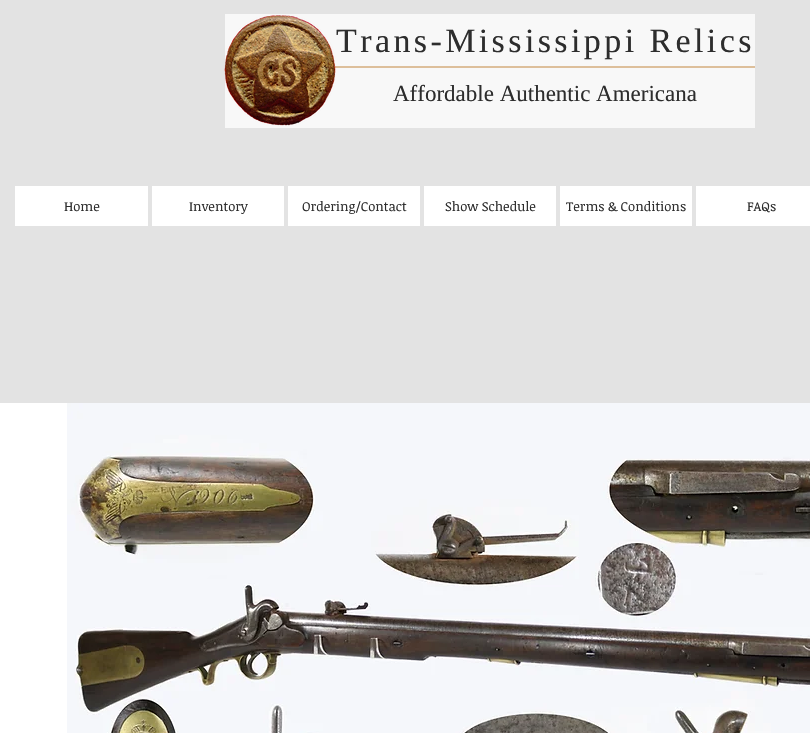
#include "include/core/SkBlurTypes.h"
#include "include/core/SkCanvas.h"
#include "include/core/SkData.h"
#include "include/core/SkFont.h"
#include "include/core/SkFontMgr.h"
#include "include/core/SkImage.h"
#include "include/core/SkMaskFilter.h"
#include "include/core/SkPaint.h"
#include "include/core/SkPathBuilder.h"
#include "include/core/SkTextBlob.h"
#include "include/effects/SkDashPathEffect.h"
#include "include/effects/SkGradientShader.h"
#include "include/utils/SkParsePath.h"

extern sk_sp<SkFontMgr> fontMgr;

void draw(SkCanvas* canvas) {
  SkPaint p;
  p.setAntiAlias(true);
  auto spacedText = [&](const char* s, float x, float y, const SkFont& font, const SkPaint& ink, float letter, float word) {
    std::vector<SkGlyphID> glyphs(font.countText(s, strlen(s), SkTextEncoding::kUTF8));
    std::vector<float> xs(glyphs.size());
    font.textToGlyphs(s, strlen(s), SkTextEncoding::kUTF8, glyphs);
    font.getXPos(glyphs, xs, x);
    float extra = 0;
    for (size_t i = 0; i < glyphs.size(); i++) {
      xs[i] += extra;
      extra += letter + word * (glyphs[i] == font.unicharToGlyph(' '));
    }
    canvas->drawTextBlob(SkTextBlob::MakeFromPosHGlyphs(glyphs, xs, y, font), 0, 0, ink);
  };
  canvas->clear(SkColorSetRGB(227, 227, 227));
  p.setColor(SkColorSetRGB(248, 248, 248));
  canvas->drawRect(SkRect::MakeLTRB(225, 14, 755, 128), p);
  p.setColor(SkColorSetRGB(221, 191, 155));
  canvas->drawRect(SkRect::MakeLTRB(335, 66, 755, 68), p);
  canvas->drawImageRect(SkImages::DeferredFromEncodedData(SkData::MakeFromFileName("images/1.png")), SkRect::MakeLTRB(224, 15, 336, 126), SkSamplingOptions());
  p.setColor(SK_ColorWHITE);
  canvas->drawRect(SkRect::MakeLTRB(15, 186, 148, 226), p);
  canvas->drawRect(SkRect::MakeLTRB(152, 186, 284, 226), p);
  canvas->drawRect(SkRect::MakeLTRB(288, 186, 420, 226), p);
  canvas->drawRect(SkRect::MakeLTRB(424, 186, 556, 226), p);
  canvas->drawRect(SkRect::MakeLTRB(560, 186, 692, 226), p);
  canvas->drawRect(SkRect::MakeLTRB(696, 186, 810, 226), p);
  canvas->drawRect(SkRect::MakeLTRB(0, 403, 67, 733), p);
  canvas->drawImageRect(SkImages::DeferredFromEncodedData(SkData::MakeFromFileName("images/2.png")), SkRect::MakeLTRB(67, 403, 810, 733), SkSamplingOptions());
  SkFont font1(fontMgr->matchFamilyStyle("Liberation Serif", SkFontStyle::Normal()), 34);
  font1.setSubpixel(true);
  p.setColor(SkColorSetRGB(45, 45, 45));
  spacedText("Trans-Mississippi Relics", 336, 52, font1, p, 3.4f, 0);
  SkFont font2(fontMgr->matchFamilyStyle("Liberation Serif", SkFontStyle::Normal()), 23);
  font2.setSubpixel(true);
  canvas->drawString("Affordable Authentic Americana", 393, 101, font2, p);
  SkFont font3(fontMgr->matchFamilyStyle("Noticia Text", SkFontStyle::Normal()), 13);
  font3.setSubpixel(true);
  canvas->drawString("Home", 64, 211, font3, p);
  canvas->drawString("Inventory", 189, 211, font3, p);
  canvas->drawString("Ordering/Contact", 302, 211, font3, p);
  canvas->drawString("Show Schedule", 445, 211, font3, p);
  canvas->drawString("Terms & Conditions", 566, 211, font3, p);
  canvas->drawString("FAQs", 747, 211, font3, p);
}
